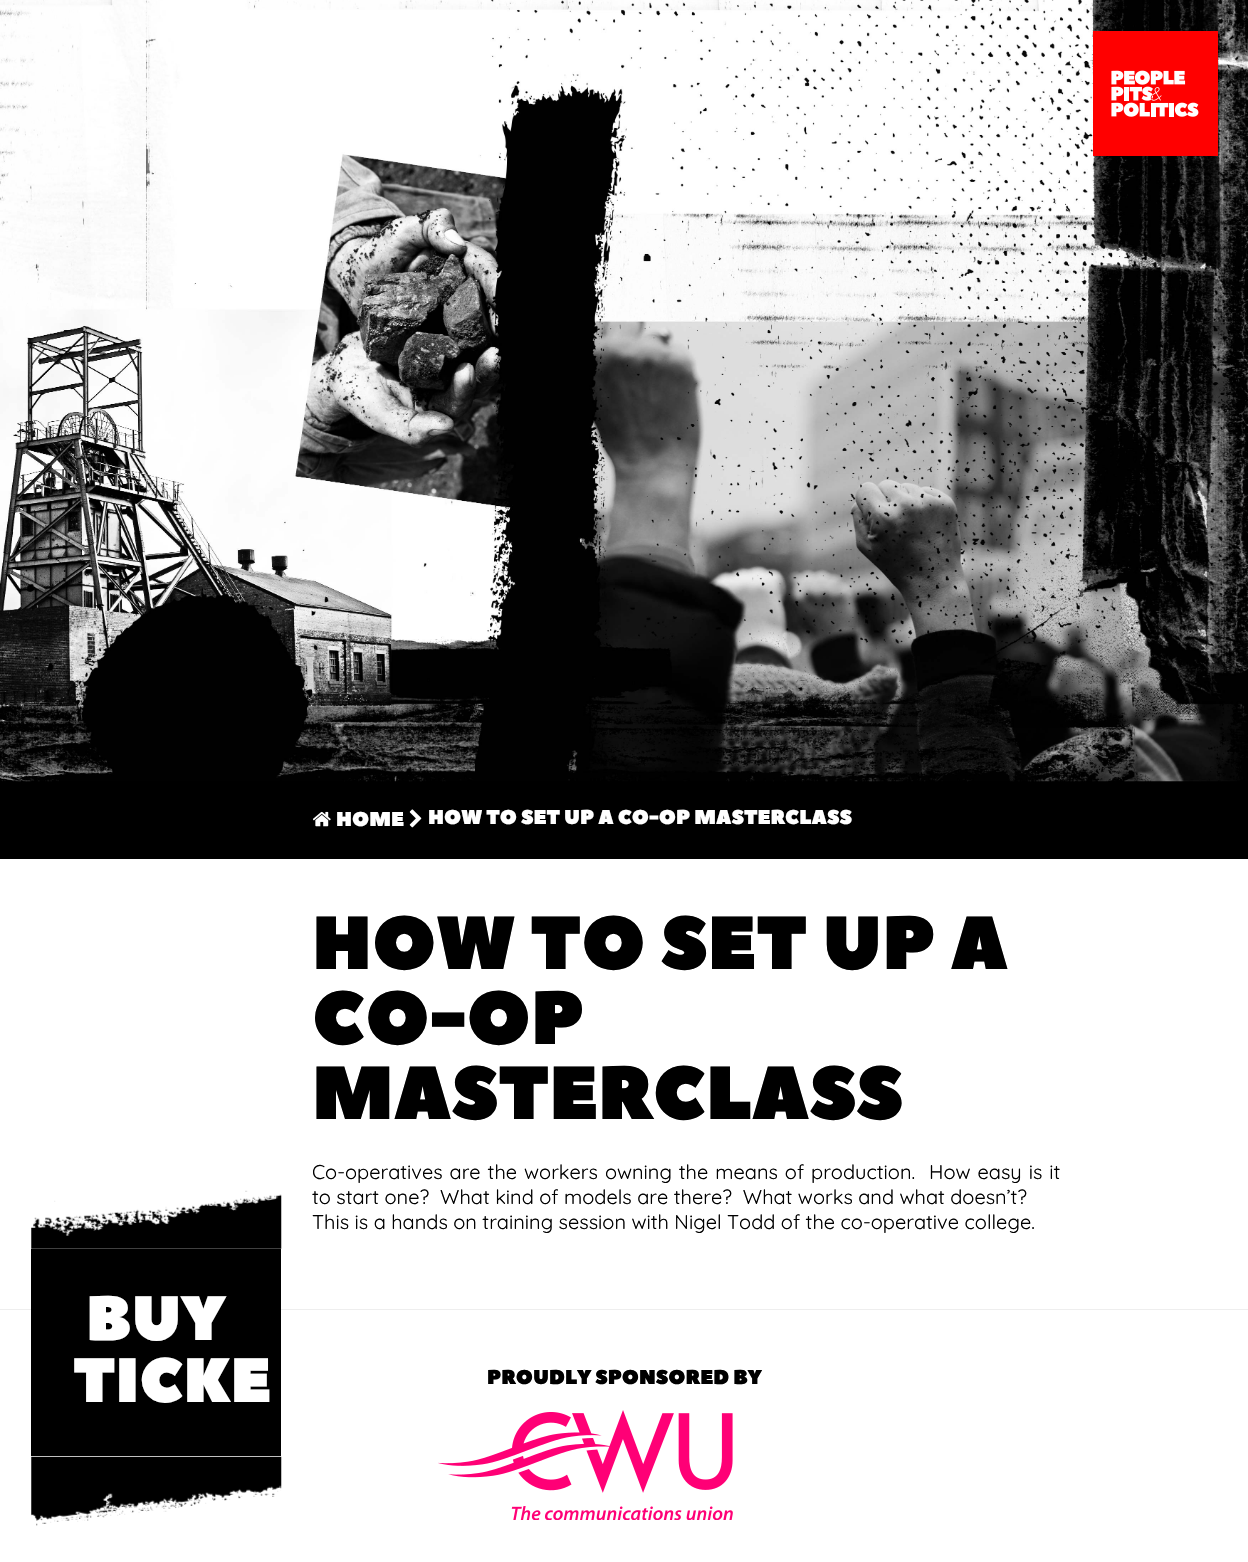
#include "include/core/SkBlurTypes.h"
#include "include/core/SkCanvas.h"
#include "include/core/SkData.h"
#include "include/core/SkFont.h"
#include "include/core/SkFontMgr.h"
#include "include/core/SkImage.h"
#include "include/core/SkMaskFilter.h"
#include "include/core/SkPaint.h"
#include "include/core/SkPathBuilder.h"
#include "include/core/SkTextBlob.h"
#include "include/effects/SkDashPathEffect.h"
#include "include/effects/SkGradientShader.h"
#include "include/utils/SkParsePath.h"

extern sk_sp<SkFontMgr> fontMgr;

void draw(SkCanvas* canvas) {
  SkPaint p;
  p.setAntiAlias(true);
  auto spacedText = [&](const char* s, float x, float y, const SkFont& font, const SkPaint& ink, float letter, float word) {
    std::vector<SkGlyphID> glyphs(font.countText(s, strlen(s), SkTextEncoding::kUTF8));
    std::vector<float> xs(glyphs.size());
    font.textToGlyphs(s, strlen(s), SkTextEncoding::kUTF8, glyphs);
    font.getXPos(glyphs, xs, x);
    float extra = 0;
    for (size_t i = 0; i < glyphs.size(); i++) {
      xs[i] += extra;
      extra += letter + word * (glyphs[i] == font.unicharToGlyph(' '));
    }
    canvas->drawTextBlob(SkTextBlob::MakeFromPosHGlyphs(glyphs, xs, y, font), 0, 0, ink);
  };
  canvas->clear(SK_ColorWHITE);
  p.setColor(SK_ColorBLACK);
  canvas->drawRect(SkRect::MakeLTRB(0, 781, 1248, 859), p);
  canvas->drawImageRect(SkImages::DeferredFromEncodedData(SkData::MakeFromFileName("images/1.png")), SkRect::MakeLTRB(0, 0, 1248, 782), SkSamplingOptions());
  p.setColor(SkColorSetRGB(255, 0, 0));
  canvas->drawRect(SkRect::MakeLTRB(1093, 31, 1218, 156), p);
  canvas->drawImageRect(SkImages::DeferredFromEncodedData(SkData::MakeFromFileName("images/2.png")), SkRect::MakeLTRB(1111, 70, 1199, 117), SkSamplingOptions());
  canvas->drawImageRect(SkImages::DeferredFromEncodedData(SkData::MakeFromFileName("images/3.png")), SkRect::MakeLTRB(313, 811, 331, 827), SkSamplingOptions());
  canvas->drawImageRect(SkImages::DeferredFromEncodedData(SkData::MakeFromFileName("images/4.png")), SkRect::MakeLTRB(409, 809, 422, 828), SkSamplingOptions());
  canvas->drawImageRect(SkImages::DeferredFromEncodedData(SkData::MakeFromFileName("images/5.png")), SkRect::MakeLTRB(31, 1190, 282, 1249), SkSamplingOptions());
  p.setColor(SkColorSetRGB(238, 238, 238));
  canvas->drawRect(SkRect::MakeLTRB(0, 1309, 1248, 1310), p);
  p.setColor(SK_ColorBLACK);
  canvas->drawRect(SkRect::MakeLTRB(31, 1249, 281, 1456), p);
  canvas->drawImageRect(SkImages::DeferredFromEncodedData(SkData::MakeFromFileName("images/6.png")), SkRect::MakeLTRB(31, 1456, 282, 1526), SkSamplingOptions());
  canvas->drawImageRect(SkImages::DeferredFromEncodedData(SkData::MakeFromFileName("images/7.png")), SkRect::MakeLTRB(438, 1410, 733, 1520), SkSamplingOptions());
  SkFont font1(fontMgr->matchFamilyStyle("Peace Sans", SkFontStyle::Normal()), 20);
  font1.setSubpixel(true);
  p.setColor(SK_ColorWHITE);
  canvas->drawString("HOME", 336, 826, font1, p);
  canvas->drawString("HOW TO SET UP A CO-OP MASTERCLASS", 428, 824, font1, p);
  SkFont font2(fontMgr->matchFamilyStyle("Peace Sans", SkFontStyle::Normal()), 75);
  font2.setSubpixel(true);
  p.setColor(SK_ColorBLACK);
  canvas->drawString("HOW TO SET UP A", 312, 969, font2, p);
  canvas->drawString("CO-OP", 312, 1044, font2, p);
  canvas->drawString("MASTERCLASS", 312, 1119, font2, p);
  SkFont font3(fontMgr->matchFamilyStyle("Quicksand", SkFontStyle(300, SkFontStyle::kNormal_Width, SkFontStyle::kUpright_Slant)), 20);
  font3.setSubpixel(true);
  spacedText("Co-operatives are the workers owning the means of production.  How easy is it", 312, 1179, font3, p, 0, 1.5f);
  canvas->drawString("to start one?  What kind of models are there?  What works and what doesn’t?", 312, 1204, font3, p);
  canvas->drawString("This is a hands on training session with Nigel Todd of the co-operative college.", 312, 1229, font3, p);
  SkFont font4(fontMgr->matchFamilyStyle("Peace Sans", SkFontStyle::Normal()), 62.5f);
  font4.setSubpixel(true);
  p.setColor(SK_ColorWHITE);
  canvas->drawString("BUY", 86, 1340, font4, p);
  canvas->drawString("TICKE", 73, 1402, font4, p);
  p.setColor(SK_ColorBLACK);
  canvas->drawString("PROUDLY SPONSORED BY", 487, 1384, font1, p);
}
